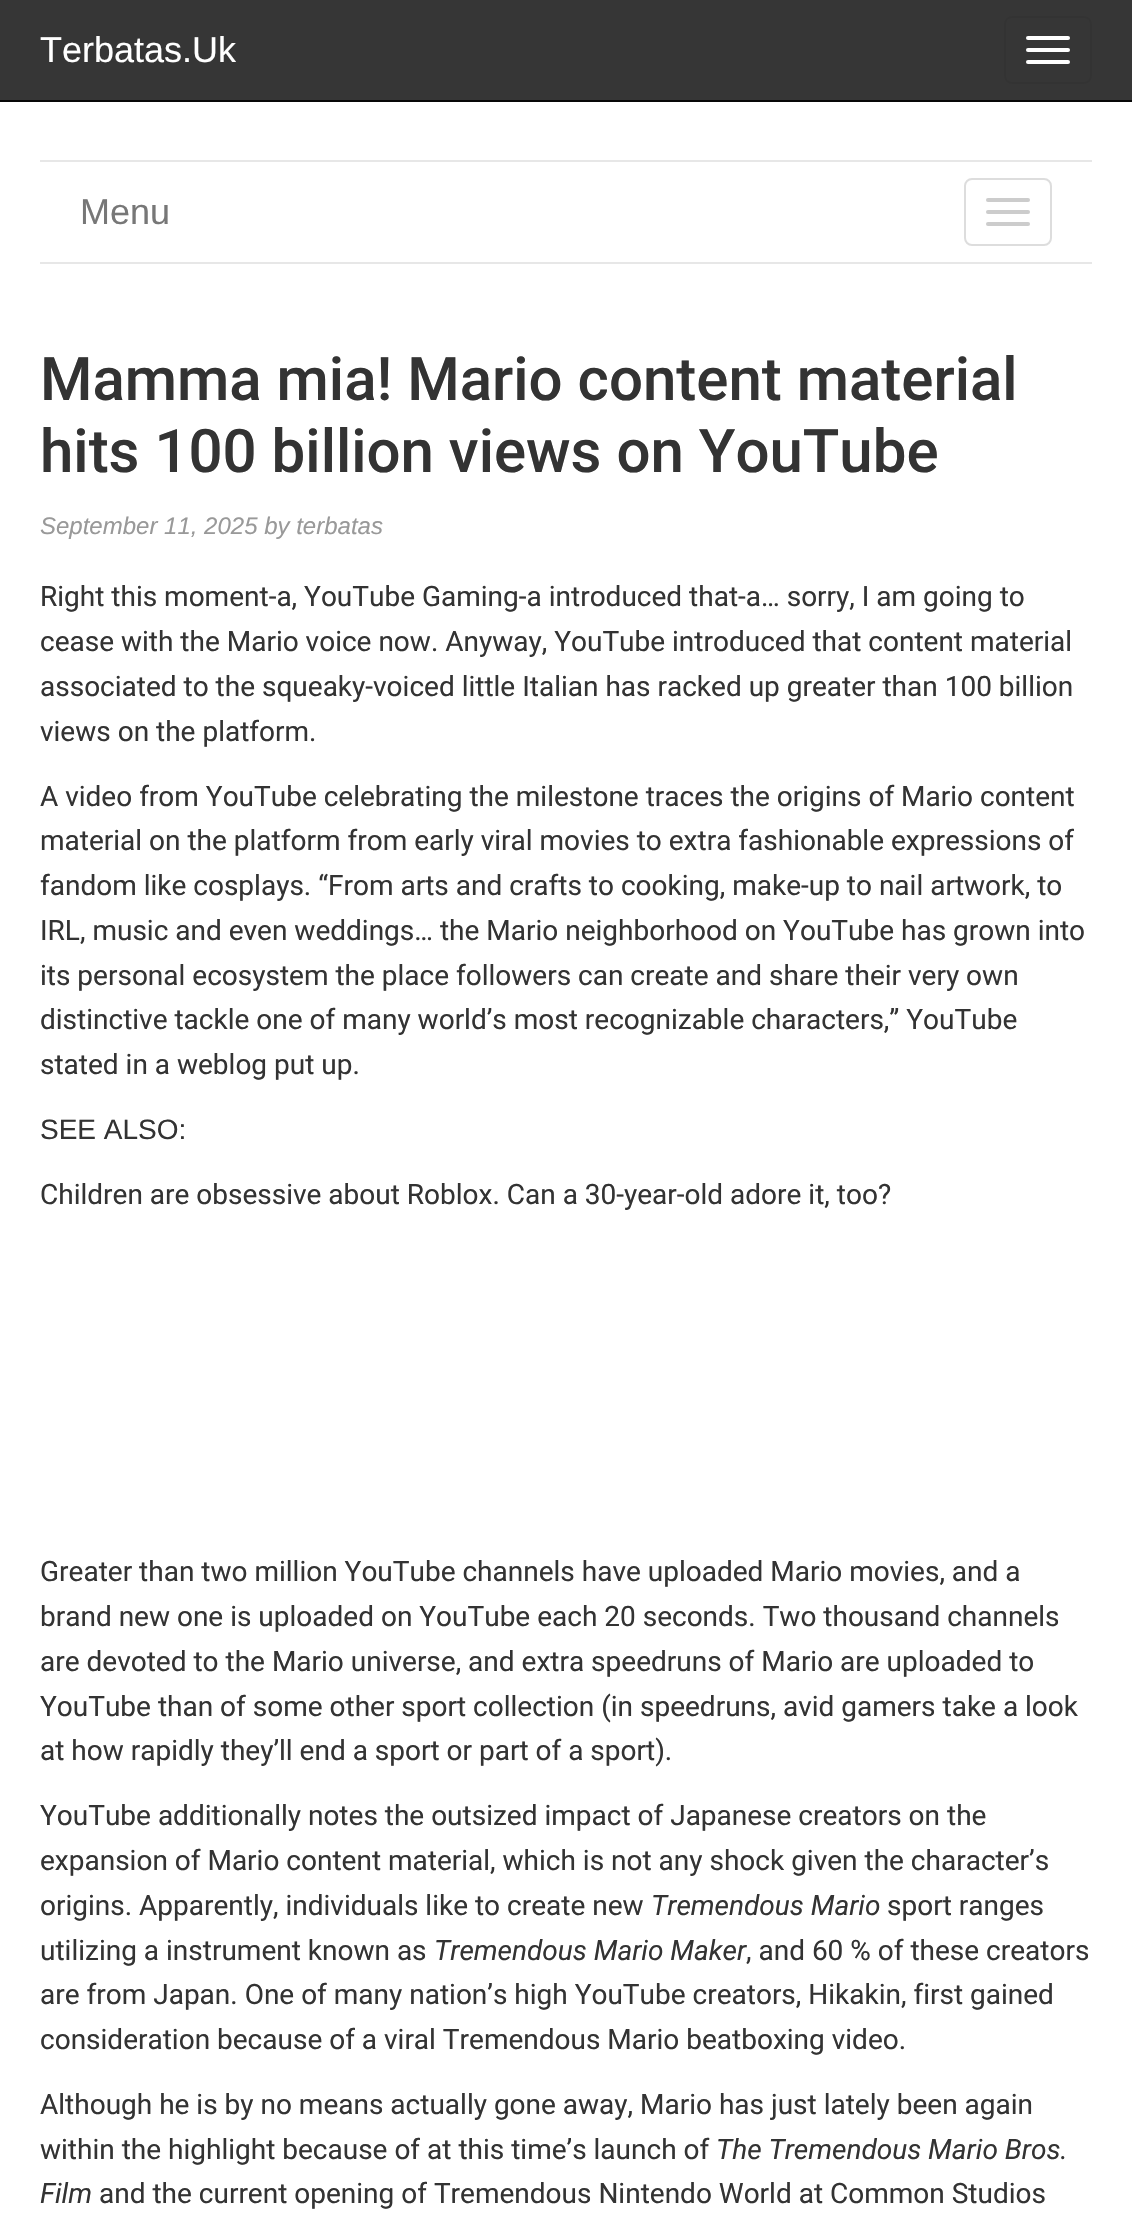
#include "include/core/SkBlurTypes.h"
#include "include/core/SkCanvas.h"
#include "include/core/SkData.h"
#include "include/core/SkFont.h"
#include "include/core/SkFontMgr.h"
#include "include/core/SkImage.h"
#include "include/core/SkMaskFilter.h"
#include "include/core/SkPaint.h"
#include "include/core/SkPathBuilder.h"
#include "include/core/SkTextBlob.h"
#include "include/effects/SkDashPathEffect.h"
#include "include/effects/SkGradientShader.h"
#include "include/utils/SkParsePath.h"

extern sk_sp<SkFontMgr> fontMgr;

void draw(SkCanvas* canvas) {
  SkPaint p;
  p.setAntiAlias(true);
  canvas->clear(SK_ColorWHITE);
  p.setColor(SkColorSetRGB(54, 54, 54));
  canvas->drawRect(SkRect::MakeLTRB(0, 0, 1132, 100), p);
  p.setColor(SkColorSetRGB(8, 8, 8));
  canvas->drawRect(SkRect::MakeLTRB(0, 100, 1132, 102), p);
  p.setStyle(SkPaint::kStroke_Style);
  p.setStrokeWidth(2);
  p.setColor(SkColorSetRGB(51, 51, 51));
  canvas->drawRoundRect(SkRect::MakeLTRB(1005, 17, 1091, 83), 7, 7, p);
  p.setStyle(SkPaint::kFill_Style);
  p.setColor(SK_ColorWHITE);
  canvas->drawRoundRect(SkRect::MakeLTRB(1026, 36, 1070, 40), 2, 2, p);
  canvas->drawRoundRect(SkRect::MakeLTRB(1026, 48, 1070, 52), 2, 2, p);
  canvas->drawRoundRect(SkRect::MakeLTRB(1026, 60, 1070, 64), 2, 2, p);
  p.setColor(SkColorSetRGB(231, 231, 231));
  canvas->drawRect(SkRect::MakeLTRB(40, 160, 1092, 162), p);
  canvas->drawRect(SkRect::MakeLTRB(40, 262, 1092, 264), p);
  p.setStyle(SkPaint::kStroke_Style);
  p.setColor(SkColorSetRGB(221, 221, 221));
  canvas->drawRoundRect(SkRect::MakeLTRB(965, 179, 1051, 245), 7, 7, p);
  p.setStyle(SkPaint::kFill_Style);
  p.setColor(SkColorSetRGB(204, 204, 204));
  canvas->drawRoundRect(SkRect::MakeLTRB(986, 198, 1030, 202), 2, 2, p);
  canvas->drawRoundRect(SkRect::MakeLTRB(986, 210, 1030, 214), 2, 2, p);
  canvas->drawRoundRect(SkRect::MakeLTRB(986, 222, 1030, 226), 2, 2, p);
  SkFont font1(fontMgr->matchFamilyStyle("Liberation Sans", SkFontStyle::Normal()), 36);
  font1.setSubpixel(true);
  p.setColor(SK_ColorWHITE);
  canvas->drawString("Terbatas.Uk", 40, 62, font1, p);
  p.setColor(SkColorSetRGB(119, 119, 119));
  canvas->drawString("Menu", 80, 224, font1, p);
  SkFont font2(fontMgr->matchFamilyStyle("Roboto", SkFontStyle(500, SkFontStyle::kNormal_Width, SkFontStyle::kUpright_Slant)), 60);
  font2.setSubpixel(true);
  p.setColor(SkColorSetRGB(51, 51, 51));
  canvas->drawString("Mamma mia! Mario content material", 40, 400, font2, p);
  canvas->drawString("hits 100 billion views on YouTube", 40, 472, font2, p);
  SkFont font3(fontMgr->matchFamilyStyle("Liberation Sans", SkFontStyle::Italic()), 24);
  font3.setSubpixel(true);
  p.setColor(SkColorSetRGB(153, 153, 153));
  canvas->drawString("September 11, 2025 by terbatas", 40, 534, font3, p);
  SkFont font4(fontMgr->matchFamilyStyle("Roboto", SkFontStyle::Normal()), 28);
  font4.setSubpixel(true);
  p.setColor(SkColorSetRGB(51, 51, 51));
  canvas->drawString("Right this moment-a, YouTube Gaming-a introduced that-a… sorry, I am going to", 40, 606, font4, p);
  canvas->drawString("cease with the Mario voice now. Anyway, YouTube introduced that content material", 40, 651, font4, p);
  canvas->drawString("associated to the squeaky-voiced little Italian has racked up greater than 100 billion", 40, 696, font4, p);
  canvas->drawString("views on the platform.", 40, 741, font4, p);
  canvas->drawString("A video from YouTube celebrating the milestone traces the origins of Mario content", 40, 806, font4, p);
  canvas->drawString("material on the platform from early viral movies to extra fashionable expressions of", 40, 850, font4, p);
  canvas->drawString("fandom like cosplays. “From arts and crafts to cooking, make-up to nail artwork, to", 40, 895, font4, p);
  canvas->drawString("IRL, music and even weddings… the Mario neighborhood on YouTube has grown into", 40, 940, font4, p);
  canvas->drawString("its personal ecosystem the place followers can create and share their very own", 40, 985, font4, p);
  canvas->drawString("distinctive tackle one of many world’s most recognizable characters,” YouTube", 40, 1029, font4, p);
  canvas->drawString("stated in a weblog put up.", 40, 1074, font4, p);
  SkFont font5(fontMgr->matchFamilyStyle("Liberation Sans", SkFontStyle::Normal()), 28);
  font5.setSubpixel(true);
  canvas->drawString("SEE ALSO:", 40, 1139, font5, p);
  canvas->drawString("Children are obsessive about Roblox. Can a 30-year-old adore it, too?", 40, 1204, font4, p);
  canvas->drawString("Greater than two million YouTube channels have uploaded Mario movies, and a", 40, 1581, font4, p);
  canvas->drawString("brand new one is uploaded on YouTube each 20 seconds. Two thousand channels", 40, 1626, font4, p);
  canvas->drawString("are devoted to the Mario universe, and extra speedruns of Mario are uploaded to", 40, 1671, font4, p);
  canvas->drawString("YouTube than of some other sport collection (in speedruns, avid gamers take a look", 40, 1716, font4, p);
  canvas->drawString("at how rapidly they’ll end a sport or part of a sport).", 40, 1760, font4, p);
  canvas->drawString("YouTube additionally notes the outsized impact of Japanese creators on the", 40, 1825, font4, p);
  canvas->drawString("expansion of Mario content material, which is not any shock given the character’s", 40, 1870, font4, p);
  canvas->drawString("origins. Apparently, individuals like to create new", 40, 1915, font4, p);
  SkFont font6(fontMgr->matchFamilyStyle("Roboto", SkFontStyle::Italic()), 28);
  font6.setSubpixel(true);
  canvas->drawString("Tremendous Mario", 651, 1915, font6, p);
  canvas->drawString("sport ranges", 887, 1915, font4, p);
  canvas->drawString("utilizing a instrument known as", 40, 1960, font4, p);
  canvas->drawString("Tremendous Mario Maker", 434, 1960, font6, p);
  canvas->drawString(", and 60 % of these creators", 746, 1960, font4, p);
  canvas->drawString("are from Japan. One of many nation’s high YouTube creators, Hikakin, first gained", 40, 2004, font4, p);
  canvas->drawString("consideration because of a viral Tremendous Mario beatboxing video.", 40, 2049, font4, p);
  canvas->drawString("Although he is by no means actually gone away, Mario has just lately been again", 40, 2114, font4, p);
  canvas->drawString("within the highlight because of at this time’s launch of", 40, 2159, font4, p);
  canvas->drawString("The Tremendous Mario Bros.", 716, 2159, font6, p);
  canvas->drawString("Film", 40, 2203, font6, p);
  canvas->drawString("and the current opening of Tremendous Nintendo World at Common Studios", 99, 2203, font4, p);
}
